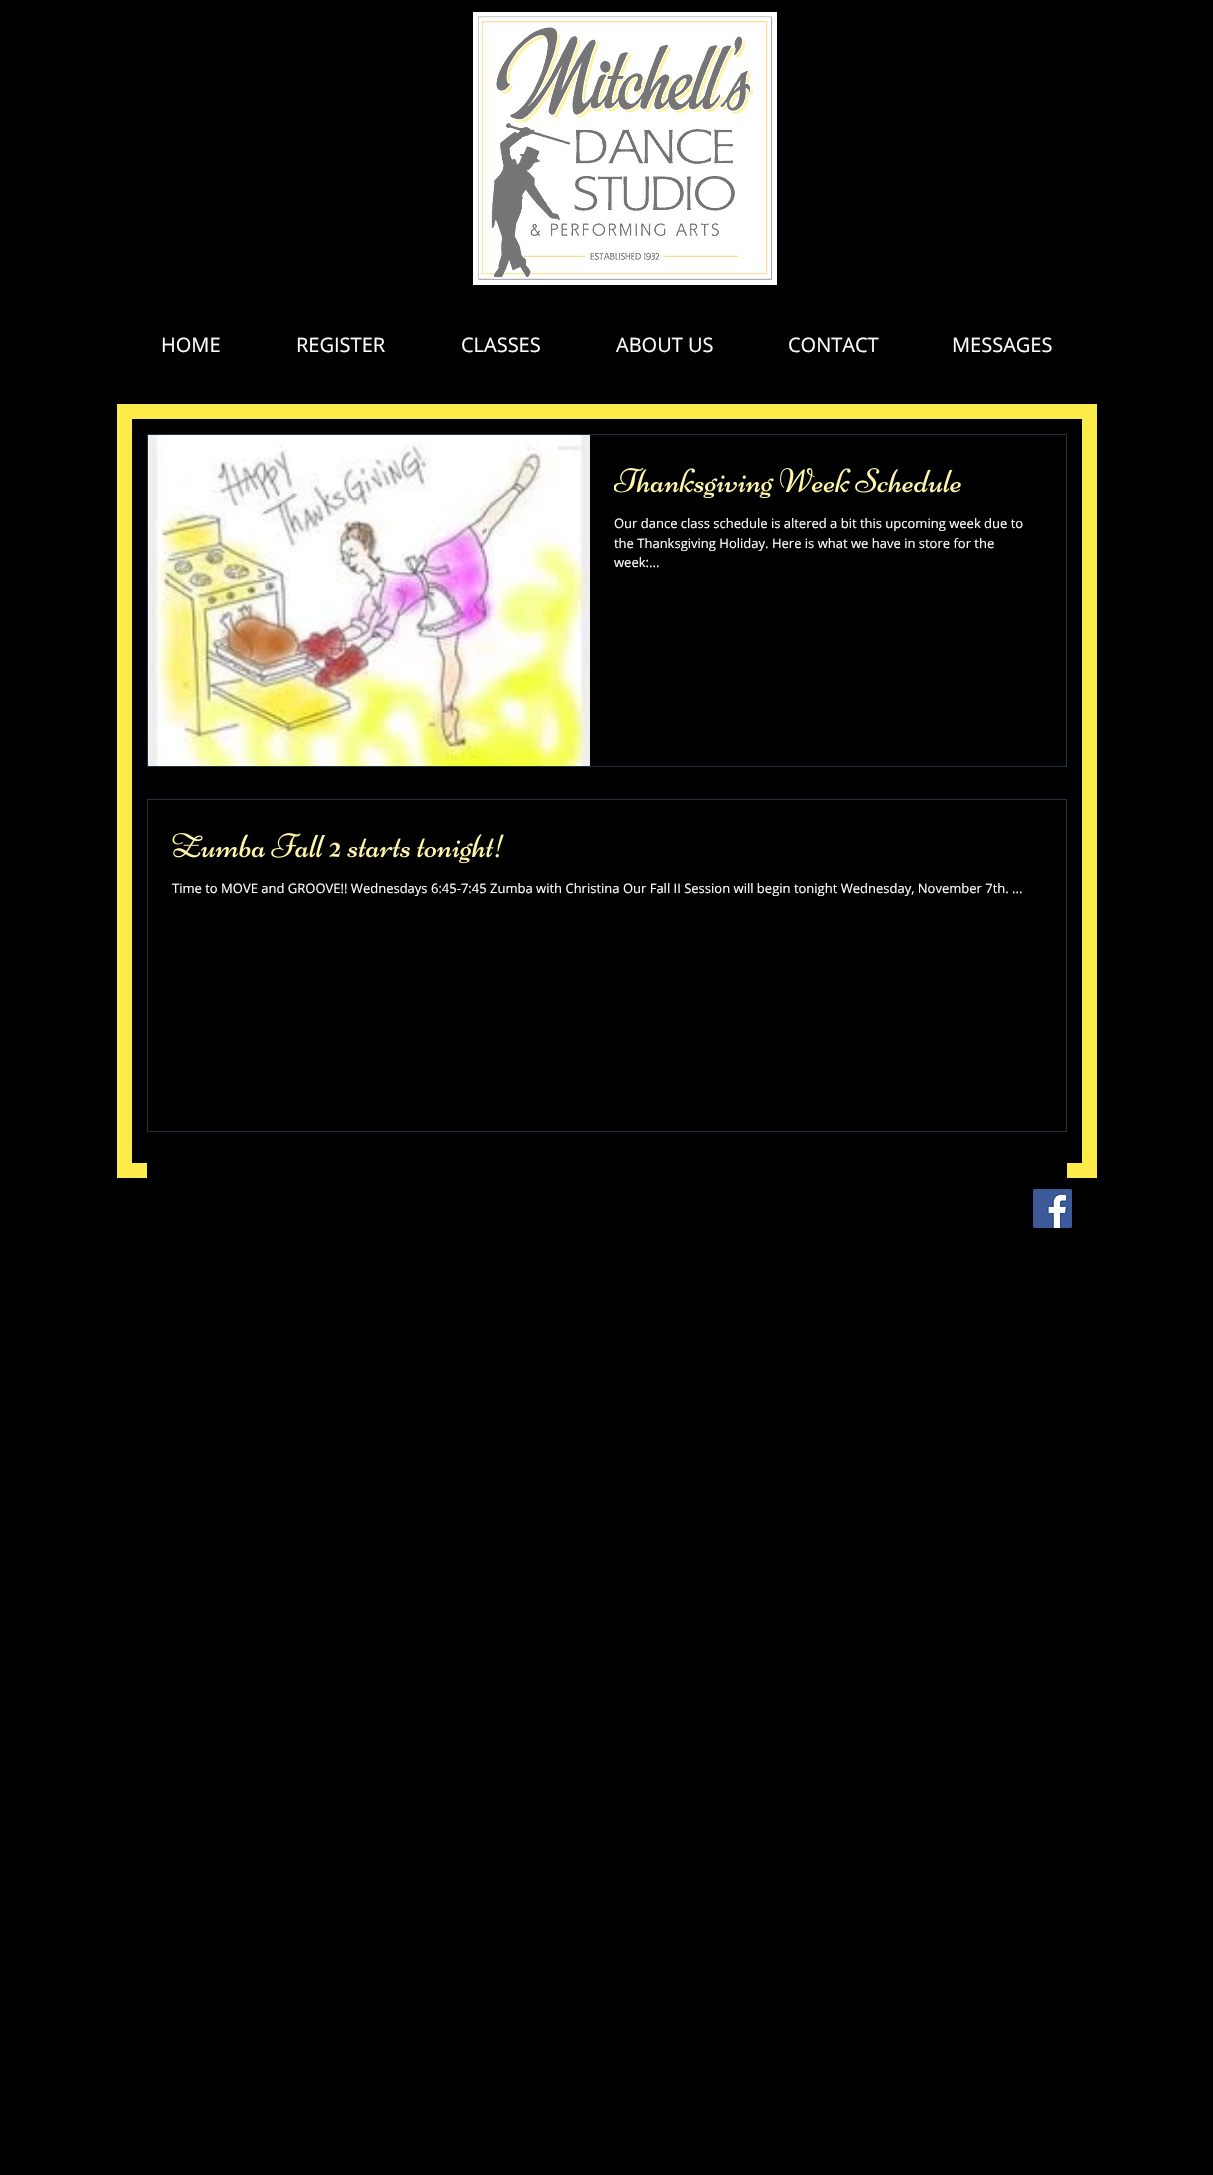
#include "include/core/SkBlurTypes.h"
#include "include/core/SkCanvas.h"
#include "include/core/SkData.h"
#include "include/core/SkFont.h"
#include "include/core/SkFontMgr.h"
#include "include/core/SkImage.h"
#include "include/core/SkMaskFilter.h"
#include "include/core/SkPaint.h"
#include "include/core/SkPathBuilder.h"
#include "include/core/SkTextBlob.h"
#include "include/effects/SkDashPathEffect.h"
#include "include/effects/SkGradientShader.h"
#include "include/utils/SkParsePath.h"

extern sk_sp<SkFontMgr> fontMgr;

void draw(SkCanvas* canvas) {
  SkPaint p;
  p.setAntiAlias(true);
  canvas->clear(SK_ColorBLACK);
  canvas->drawImageRect(SkImages::DeferredFromEncodedData(SkData::MakeFromFileName("images/1.png")), SkRect::MakeLTRB(473, 12, 777, 285), SkSamplingOptions());
  p.setStyle(SkPaint::kStroke_Style);
  p.setStrokeWidth(15);
  p.setColor(SkColorSetRGB(251, 236, 73));
  canvas->drawPath(SkPathBuilder().moveTo(124.5f, 411.5f).lineTo(1089.5f, 411.5f).lineTo(1089.5f, 1170.5f).lineTo(124.5f, 1170.5f).close().detach(), p);
  p.setStyle(SkPaint::kFill_Style);
  p.setColor(SK_ColorBLACK);
  canvas->drawRect(SkRect::MakeLTRB(147, 1163, 1067, 1178), p);
  p.setStyle(SkPaint::kStroke_Style);
  p.setStrokeWidth(1);
  p.setColor(SkColorSetRGB(30, 52, 67));
  canvas->drawRect(SkRect::MakeLTRB(147.5f, 434.5f, 1066.5f, 766.5f), p);
  canvas->drawImageRect(SkImages::DeferredFromEncodedData(SkData::MakeFromFileName("images/2.png")), SkRect::MakeLTRB(148, 435, 590, 766), SkSamplingOptions());
  canvas->drawImageRect(SkImages::DeferredFromEncodedData(SkData::MakeFromFileName("images/3.png")), SkRect::MakeLTRB(614, 468, 961, 499), SkSamplingOptions());
  canvas->drawRect(SkRect::MakeLTRB(147.5f, 799.5f, 1066.5f, 1131.5f), p);
  canvas->drawImageRect(SkImages::DeferredFromEncodedData(SkData::MakeFromFileName("images/4.png")), SkRect::MakeLTRB(172, 833, 504, 864), SkSamplingOptions());
  canvas->drawImageRect(SkImages::DeferredFromEncodedData(SkData::MakeFromFileName("images/5.png")), SkRect::MakeLTRB(1033, 1189, 1072, 1228), SkSamplingOptions());
  SkFont font1(fontMgr->matchFamilyStyle("Open Sans", SkFontStyle::Normal()), 20);
  font1.setSubpixel(true);
  p.setStyle(SkPaint::kFill_Style);
  p.setColor(SK_ColorWHITE);
  canvas->drawString("HOME", 161, 352, font1, p);
  canvas->drawString("REGISTER", 296, 352, font1, p);
  canvas->drawString("CLASSES", 461, 352, font1, p);
  canvas->drawString("ABOUT US", 616, 352, font1, p);
  canvas->drawString("CONTACT", 788, 352, font1, p);
  canvas->drawString("MESSAGES", 952, 352, font1, p);
  SkFont font2(fontMgr->matchFamilyStyle("Open Sans", SkFontStyle::Normal()), 13);
  font2.setSubpixel(true);
  canvas->drawString("Our dance class schedule is altered a bit this upcoming week due to", 614, 528, font2, p);
  canvas->drawString("the Thanksgiving Holiday. Here is what we have in store for the", 614, 548, font2, p);
  canvas->drawString("week:...", 614, 567, font2, p);
  canvas->drawString("Time to MOVE and GROOVE!! Wednesdays 6:45-7:45 Zumba with Christina Our Fall II Session will begin tonight Wednesday, November 7th. ...", 172, 893, font2, p);
}
